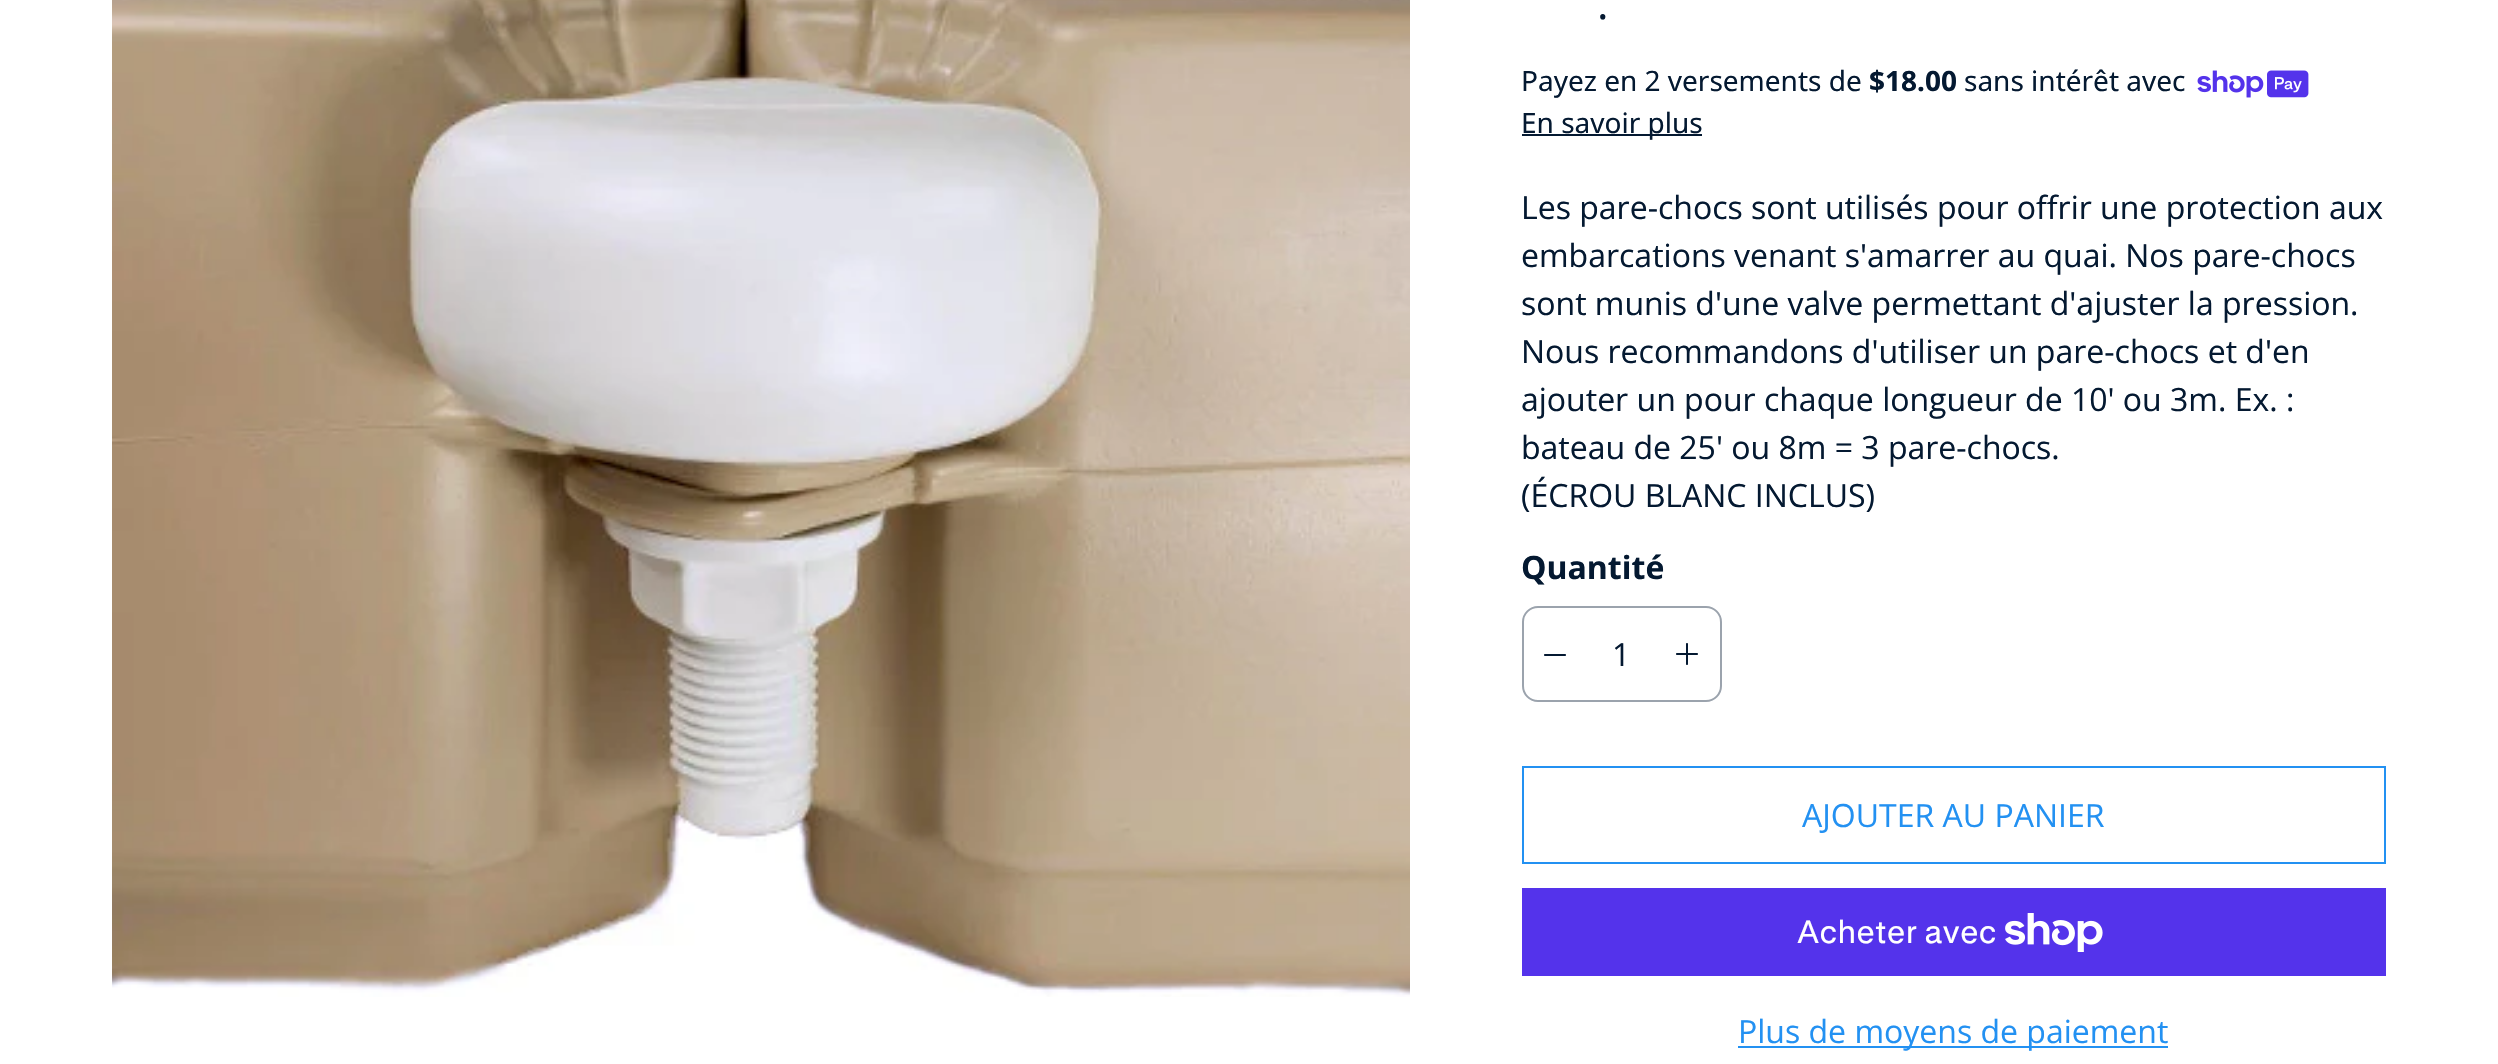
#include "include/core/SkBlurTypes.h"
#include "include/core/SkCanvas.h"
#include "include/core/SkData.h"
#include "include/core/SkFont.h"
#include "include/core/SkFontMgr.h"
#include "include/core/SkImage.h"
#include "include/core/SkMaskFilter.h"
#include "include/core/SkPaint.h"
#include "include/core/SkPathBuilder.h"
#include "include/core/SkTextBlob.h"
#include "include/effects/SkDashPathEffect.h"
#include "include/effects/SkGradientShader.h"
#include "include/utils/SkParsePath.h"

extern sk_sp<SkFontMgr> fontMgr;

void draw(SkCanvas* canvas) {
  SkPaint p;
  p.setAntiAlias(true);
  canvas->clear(SK_ColorWHITE);
  canvas->drawImageRect(SkImages::DeferredFromEncodedData(SkData::MakeFromFileName("images/1.png")), SkRect::MakeLTRB(112, 0, 1410, 997), SkSamplingOptions());
  canvas->drawImageRect(SkImages::DeferredFromEncodedData(SkData::MakeFromFileName("images/2.png")), SkRect::MakeLTRB(2197, 70, 2309, 98), SkSamplingOptions());
  p.setColor(SkColorSetRGB(4, 25, 49));
  canvas->drawRect(SkRect::MakeLTRB(1522, 134, 1702, 136), p);
  p.setStyle(SkPaint::kStroke_Style);
  p.setStrokeWidth(2);
  p.setColor(SkColorSetRGB(155, 163, 173));
  canvas->drawRoundRect(SkRect::MakeLTRB(1523, 607, 1721, 701), 15, 15, p);
  canvas->drawImageRect(SkImages::DeferredFromEncodedData(SkData::MakeFromFileName("images/3.png")), SkRect::MakeLTRB(1544, 654, 1566, 656), SkSamplingOptions());
  canvas->drawImageRect(SkImages::DeferredFromEncodedData(SkData::MakeFromFileName("images/4.png")), SkRect::MakeLTRB(1676, 643, 1698, 665), SkSamplingOptions());
  p.setColor(SkColorSetRGB(35, 145, 242));
  canvas->drawRect(SkRect::MakeLTRB(1523, 767, 2385, 863), p);
  p.setStyle(SkPaint::kFill_Style);
  p.setColor(SkColorSetRGB(84, 51, 235));
  canvas->drawRect(SkRect::MakeLTRB(1522, 888, 2386, 976), p);
  canvas->drawImageRect(SkImages::DeferredFromEncodedData(SkData::MakeFromFileName("images/5.png")), SkRect::MakeLTRB(2005, 913, 2103, 952), SkSamplingOptions());
  p.setColor(SkColorSetRGB(35, 145, 242));
  canvas->drawRect(SkRect::MakeLTRB(1738, 1046, 2168, 1048), p);
  SkFont font1(fontMgr->matchFamilyStyle("Open Sans", SkFontStyle::Normal()), 44);
  font1.setSubpixel(true);
  p.setColor(SkColorSetRGB(4, 25, 49));
  canvas->drawString(".", 1597, 19, font1, p);
  SkFont font2(fontMgr->matchFamilyStyle("Noto Sans", SkFontStyle::Normal()), 28);
  font2.setSubpixel(true);
  canvas->drawString("Payez en 2 versements de", 1521, 91, font2, p);
  SkFont font3(fontMgr->matchFamilyStyle("Noto Sans", SkFontStyle::Bold()), 28);
  font3.setSubpixel(true);
  canvas->drawString("$18.00", 1869, 91, font3, p);
  canvas->drawString("sans intérêt avec", 1964, 91, font2, p);
  canvas->drawString("En savoir plus", 1521, 133, font2, p);
  SkFont font4(fontMgr->matchFamilyStyle("Open Sans", SkFontStyle::Normal()), 32);
  font4.setSubpixel(true);
  canvas->drawString("Les pare-chocs sont utilisés pour offrir une protection aux", 1521, 219, font4, p);
  canvas->drawString("embarcations venant s'amarrer au quai. Nos pare-chocs", 1521, 267, font4, p);
  canvas->drawString("sont munis d'une valve permettant d'ajuster la pression.", 1521, 315, font4, p);
  canvas->drawString("Nous recommandons d'utiliser un pare-chocs et d'en", 1521, 363, font4, p);
  canvas->drawString("ajouter un pour chaque longueur de 10' ou 3m. Ex. :", 1521, 411, font4, p);
  canvas->drawString("bateau de 25' ou 8m = 3 pare-chocs.", 1521, 459, font4, p);
  canvas->drawString("(ÉCROU BLANC INCLUS)", 1521, 507, font4, p);
  SkFont font5(fontMgr->matchFamilyStyle("Open Sans", SkFontStyle::Bold()), 32);
  font5.setSubpixel(true);
  canvas->drawString("Quantité", 1521, 579, font5, p);
  canvas->drawString("1", 1612, 666, font4, p);
  p.setColor(SkColorSetRGB(35, 145, 242));
  canvas->drawString("AJOUTER AU PANIER", 1802, 827, font4, p);
  SkFont font6(fontMgr->matchFamilyStyle("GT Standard", SkFontStyle::Normal()), 32);
  font6.setSubpixel(true);
  p.setColor(SK_ColorWHITE);
  canvas->drawString("Acheter avec", 1797, 943, font6, p);
  p.setColor(SkColorSetRGB(35, 145, 242));
  canvas->drawString("Plus de moyens de paiement", 1738, 1043, font4, p);
}
